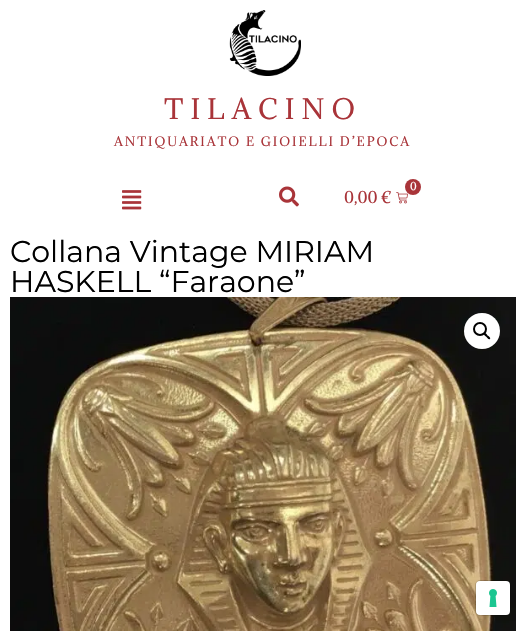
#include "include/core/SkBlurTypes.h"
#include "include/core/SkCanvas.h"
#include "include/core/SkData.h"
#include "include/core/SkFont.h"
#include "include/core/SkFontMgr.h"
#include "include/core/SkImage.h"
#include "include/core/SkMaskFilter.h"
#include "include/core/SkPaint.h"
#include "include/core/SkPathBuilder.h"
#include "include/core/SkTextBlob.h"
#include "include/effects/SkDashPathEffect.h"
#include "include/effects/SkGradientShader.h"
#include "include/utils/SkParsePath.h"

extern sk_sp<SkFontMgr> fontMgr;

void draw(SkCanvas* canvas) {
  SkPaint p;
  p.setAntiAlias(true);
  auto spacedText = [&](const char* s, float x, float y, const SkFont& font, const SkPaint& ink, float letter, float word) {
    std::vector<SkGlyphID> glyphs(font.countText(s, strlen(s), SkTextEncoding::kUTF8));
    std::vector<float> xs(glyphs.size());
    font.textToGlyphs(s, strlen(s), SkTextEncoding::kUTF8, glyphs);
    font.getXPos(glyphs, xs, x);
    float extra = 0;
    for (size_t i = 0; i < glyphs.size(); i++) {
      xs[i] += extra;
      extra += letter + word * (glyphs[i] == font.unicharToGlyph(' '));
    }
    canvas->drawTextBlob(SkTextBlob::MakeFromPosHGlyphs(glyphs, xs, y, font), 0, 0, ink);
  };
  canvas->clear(SK_ColorWHITE);
  canvas->drawImageRect(SkImages::DeferredFromEncodedData(SkData::MakeFromFileName("images/1.png")), SkRect::MakeLTRB(229, 10, 301, 76), SkSamplingOptions());
  canvas->drawImageRect(SkImages::DeferredFromEncodedData(SkData::MakeFromFileName("images/2.png")), SkRect::MakeLTRB(122, 190, 142, 210), SkSamplingOptions());
  canvas->drawImageRect(SkImages::DeferredFromEncodedData(SkData::MakeFromFileName("images/3.png")), SkRect::MakeLTRB(279, 186, 299, 207), SkSamplingOptions());
  canvas->drawImageRect(SkImages::DeferredFromEncodedData(SkData::MakeFromFileName("images/4.png")), SkRect::MakeLTRB(396, 192, 408, 204), SkSamplingOptions());
  p.setColor(SkColorSetRGB(169, 52, 57));
  canvas->drawCircle(413, 187, 8, p);
  canvas->drawImageRect(SkImages::DeferredFromEncodedData(SkData::MakeFromFileName("images/5.png")), SkRect::MakeLTRB(10, 297, 516, 631), SkSamplingOptions());
  p.setColor(SK_ColorWHITE);
  canvas->drawCircle(482, 331, 18, p);
  p.setStyle(SkPaint::kStroke_Style);
  p.setStrokeWidth(2);
  p.setColor(SK_ColorBLACK);
  canvas->drawCircle(480, 329, 6, p);
  p.setStyle(SkPaint::kFill_Style);
  canvas->drawPath(SkPathBuilder().moveTo(484, 333.5f).cubicTo(485.5f, 332, 487, 335, 487.5f, 335.5f).cubicTo(488.5f, 336, 491, 338, 490, 339).cubicTo(488.5f, 340, 487, 337.5f, 486.5f, 337).cubicTo(485.5f, 336, 483, 334.5f, 484, 333.5f).close().detach(), p);
  p.setStyle(SkPaint::kStroke_Style);
  p.setStrokeWidth(1);
  p.setColor(SkColorSetARGB(38, 0, 0, 0));
  canvas->drawRoundRect(SkRect::MakeLTRB(475.5f, 580.5f, 510.5f, 615.5f), 4.5f, 4.5f, p);
  p.setStyle(SkPaint::kFill_Style);
  p.setColor(SK_ColorWHITE);
  canvas->drawRoundRect(SkRect::MakeLTRB(476, 581, 510, 615), 4, 4, p);
  canvas->drawImageRect(SkImages::DeferredFromEncodedData(SkData::MakeFromFileName("images/6.png")), SkRect::MakeLTRB(489, 589, 497, 607), SkSamplingOptions());
  SkFont font1(fontMgr->matchFamilyStyle("Adamina", SkFontStyle::Normal()), 26);
  font1.setSubpixel(true);
  p.setColor(SkColorSetRGB(169, 52, 57));
  spacedText("TILACINO", 164, 119, font1, p, 7, 0);
  SkFont font2(fontMgr->matchFamilyStyle("Adamina", SkFontStyle::Normal()), 12);
  font2.setSubpixel(true);
  spacedText("ANTIQUARIATO E GIOIELLI D’EPOCA", 114, 146, font2, p, 1.9f, 0);
  SkFont font3(fontMgr->matchFamilyStyle("Adamina", SkFontStyle::Normal()), 10);
  font3.setSubpixel(true);
  p.setColor(SK_ColorWHITE);
  canvas->drawString("0", 410, 190, font3, p);
  SkFont font4(fontMgr->matchFamilyStyle("Adamina", SkFontStyle::Normal()), 15);
  font4.setSubpixel(true);
  p.setColor(SkColorSetRGB(169, 52, 57));
  canvas->drawString("0,00 €", 344, 203, font4, p);
  SkFont font5(fontMgr->matchFamilyStyle("Montserrat", SkFontStyle::Normal()), 30);
  font5.setSubpixel(true);
  p.setColor(SK_ColorBLACK);
  canvas->drawString("Collana Vintage MIRIAM", 10, 262, font5, p);
  canvas->drawString("HASKELL “Faraone”", 10, 292, font5, p);
}
